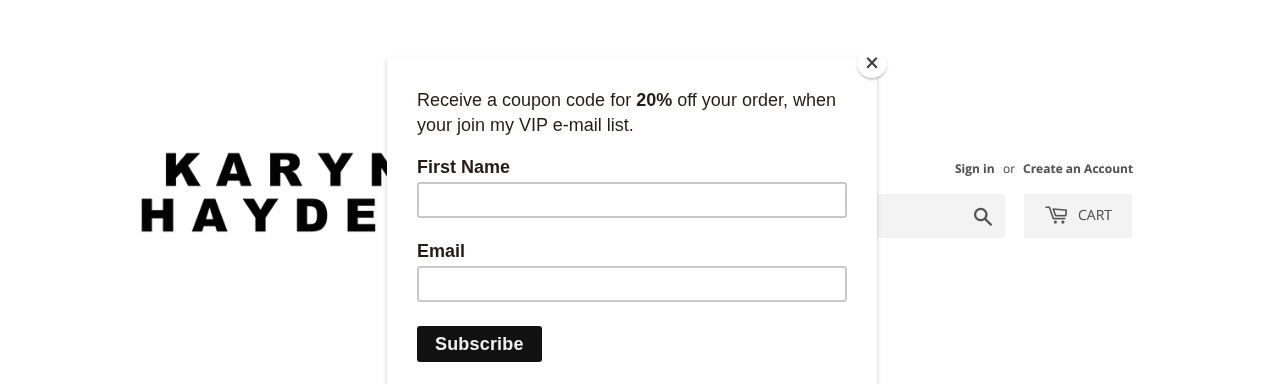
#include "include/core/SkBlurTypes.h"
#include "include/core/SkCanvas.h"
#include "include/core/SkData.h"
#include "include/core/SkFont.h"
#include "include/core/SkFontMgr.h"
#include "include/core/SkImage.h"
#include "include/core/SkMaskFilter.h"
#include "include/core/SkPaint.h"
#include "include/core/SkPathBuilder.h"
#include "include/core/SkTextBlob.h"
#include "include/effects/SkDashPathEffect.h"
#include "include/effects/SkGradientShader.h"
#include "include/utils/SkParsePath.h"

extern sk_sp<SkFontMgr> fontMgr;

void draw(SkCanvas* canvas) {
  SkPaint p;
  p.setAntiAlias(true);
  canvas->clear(SK_ColorWHITE);
  p.setColor(SkColorSetARGB(51, 0, 0, 0));
  p.setMaskFilter(SkMaskFilter::MakeBlur(kNormal_SkBlurStyle, 1));
  canvas->drawRoundRect(SkRect::MakeLTRB(857, 50, 887, 80), 15, 15, p);
  p.setMaskFilter(nullptr);
  canvas->drawImageRect(SkImages::DeferredFromEncodedData(SkData::MakeFromFileName("images/2.png")), SkRect::MakeLTRB(141, 152, 387, 233), SkSamplingOptions());
  p.setColor(SkColorSetRGB(243, 243, 243));
  canvas->drawRoundRect(SkRect::MakeLTRB(705, 194, 1005, 238), 2, 2, p);
  canvas->save();
  canvas->clipPath(SkPathBuilder(SkPathFillType::kEvenOdd).moveTo(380, 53).lineTo(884, 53).lineTo(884, 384).lineTo(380, 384).close().moveTo(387, 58).lineTo(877, 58).lineTo(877, 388).lineTo(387, 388).close().detach(), true);
  p.setColor(SkColorSetARGB(51, 0, 0, 0));
  p.setMaskFilter(SkMaskFilter::MakeBlur(kNormal_SkBlurStyle, 2));
  canvas->drawRect(SkRect::MakeLTRB(387, 60, 877, 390), p);
  p.setMaskFilter(nullptr);
  canvas->restore();
  p.setColor(SK_ColorWHITE);
  canvas->drawCircle(872, 63, 15, p);
  p.setColor(SkColorSetRGB(65, 65, 65));
  canvas->drawPath(SkPathBuilder().moveTo(876, 57).lineTo(877.5f, 58.5f).lineTo(868, 68.5f).lineTo(866.5f, 67).close().detach(), p);
  canvas->drawPath(SkPathBuilder().moveTo(866.5f, 58.5f).lineTo(868, 57).lineTo(877.5f, 67).lineTo(876, 68.5f).close().detach(), p);
  canvas->drawImageRect(SkImages::DeferredFromEncodedData(SkData::MakeFromFileName("images/1.png")), SkRect::MakeLTRB(387, 93, 877, 362), SkSamplingOptions());
  canvas->drawImageRect(SkImages::DeferredFromEncodedData(SkData::MakeFromFileName("images/3.png")), SkRect::MakeLTRB(974, 207, 992, 226), SkSamplingOptions());
  p.setColor(SkColorSetRGB(243, 243, 243));
  canvas->drawRoundRect(SkRect::MakeLTRB(1024, 194, 1132, 238), 2, 2, p);
  canvas->drawImageRect(SkImages::DeferredFromEncodedData(SkData::MakeFromFileName("images/4.png")), SkRect::MakeLTRB(1045, 206, 1068, 224), SkSamplingOptions());
  SkFont font1(fontMgr->matchFamilyStyle("Open Sans", SkFontStyle::Bold()), 12);
  font1.setSubpixel(true);
  p.setColor(SkColorSetRGB(84, 84, 84));
  canvas->drawString("Sign in", 955, 173, font1, p);
  SkFont font2(fontMgr->matchFamilyStyle("Open Sans", SkFontStyle::Normal()), 12);
  font2.setSubpixel(true);
  canvas->drawString("or", 1003, 173, font2, p);
  canvas->drawString("Create an Account", 1023, 173, font1, p);
  SkFont font3(fontMgr->matchFamilyStyle("Open Sans", SkFontStyle::Normal()), 14);
  font3.setSubpixel(true);
  canvas->drawString("CART", 1078, 220, font3, p);
}
